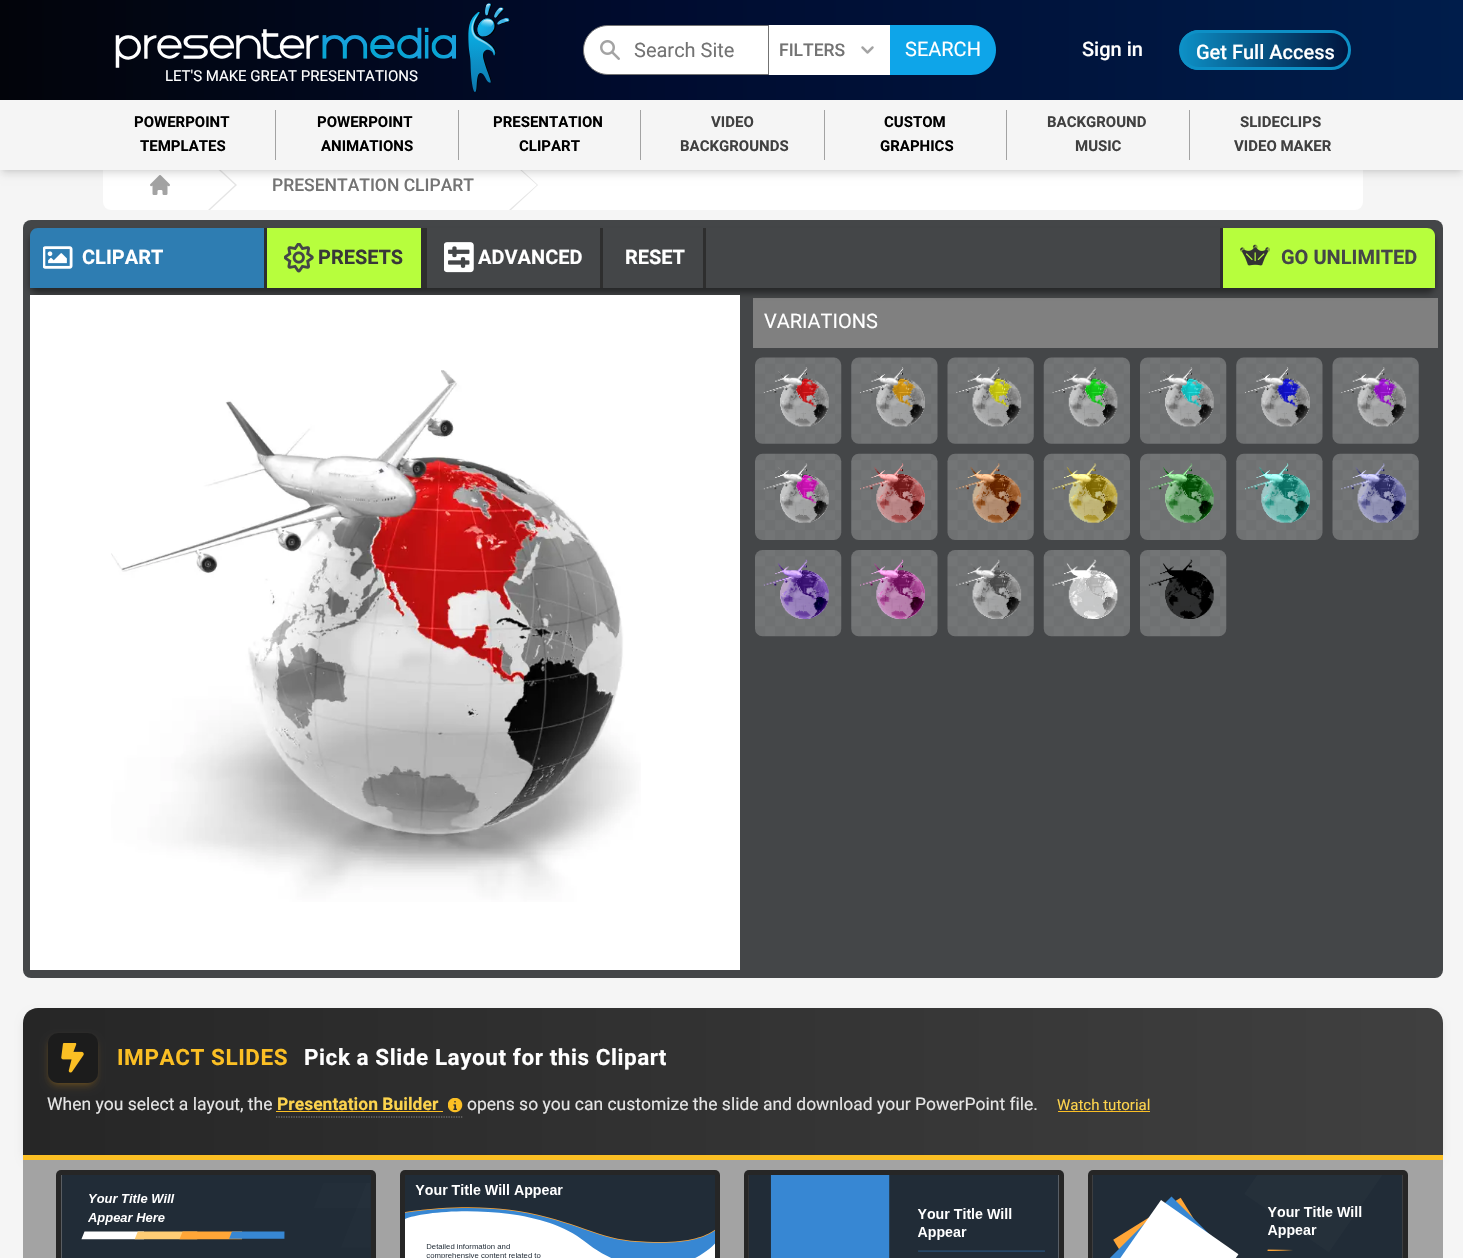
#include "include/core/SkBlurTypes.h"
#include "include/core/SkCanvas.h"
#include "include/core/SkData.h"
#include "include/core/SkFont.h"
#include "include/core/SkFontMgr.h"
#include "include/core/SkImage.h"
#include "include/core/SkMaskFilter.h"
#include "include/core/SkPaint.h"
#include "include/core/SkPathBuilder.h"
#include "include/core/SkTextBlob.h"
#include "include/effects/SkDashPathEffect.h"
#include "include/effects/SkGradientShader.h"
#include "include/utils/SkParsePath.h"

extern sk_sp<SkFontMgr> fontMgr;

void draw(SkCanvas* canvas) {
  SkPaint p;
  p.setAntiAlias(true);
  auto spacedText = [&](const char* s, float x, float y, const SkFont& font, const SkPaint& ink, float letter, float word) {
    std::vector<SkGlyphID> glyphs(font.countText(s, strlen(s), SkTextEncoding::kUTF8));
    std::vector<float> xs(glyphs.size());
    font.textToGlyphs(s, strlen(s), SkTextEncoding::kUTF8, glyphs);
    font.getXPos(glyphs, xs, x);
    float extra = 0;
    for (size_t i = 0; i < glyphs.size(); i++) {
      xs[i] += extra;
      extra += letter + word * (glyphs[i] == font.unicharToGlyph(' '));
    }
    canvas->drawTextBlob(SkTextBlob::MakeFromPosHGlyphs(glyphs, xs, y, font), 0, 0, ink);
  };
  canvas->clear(SkColorSetRGB(245, 245, 245));
  {
    const SkColor colors[] = {SkColorSetRGB(2, 4, 10), SkColorSetRGB(0, 12, 48), SkColorSetRGB(0, 29, 75)};
    const float stops[] = {0, 0.46f, 1};
    const SkPoint ends[] = {{0, 50}, {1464, 50}};
    p.setShader(SkGradientShader::MakeLinear(ends, colors, stops, 3, SkTileMode::kClamp));
    p.setAlpha(255);
  }
  canvas->drawRect(SkRect::MakeLTRB(0, 0, 1463, 100), p);
  p.setShader(nullptr);
  p.setColor(SK_ColorWHITE);
  canvas->drawPath(SkPathBuilder().moveTo(608, 25.5f).lineTo(768.5f, 25.5f).lineTo(768.5f, 74.5f).lineTo(608, 74.5f).cubicTo(594.5f, 74.5f, 583.5f, 63.5f, 583.5f, 50).cubicTo(583.5f, 36.5f, 594.5f, 25.5f, 608, 25.5f).close().detach(), p);
  p.setStyle(SkPaint::kStroke_Style);
  p.setStrokeWidth(1);
  p.setColor(SkColorSetRGB(115, 115, 115));
  canvas->drawPath(SkPathBuilder().moveTo(608, 25.5f).lineTo(768.5f, 25.5f).lineTo(768.5f, 74.5f).lineTo(608, 74.5f).cubicTo(594.5f, 74.5f, 583.5f, 63.5f, 583.5f, 50).cubicTo(583.5f, 36.5f, 594.5f, 25.5f, 608, 25.5f).close().detach(), p);
  canvas->drawImageRect(SkImages::DeferredFromEncodedData(SkData::MakeFromFileName("images/1.png")), SkRect::MakeLTRB(600, 40, 620, 60), SkSamplingOptions());
  p.setStyle(SkPaint::kFill_Style);
  p.setColor(SK_ColorWHITE);
  canvas->drawRect(SkRect::MakeLTRB(769, 25, 890, 75), p);
  canvas->drawImageRect(SkImages::DeferredFromEncodedData(SkData::MakeFromFileName("images/2.png")), SkRect::MakeLTRB(861, 46, 874, 54), SkSamplingOptions());
  p.setColor(SkColorSetRGB(14, 165, 233));
  canvas->drawPath(SkPathBuilder().moveTo(890, 25).lineTo(971, 25).cubicTo(985, 25, 996, 36, 996, 50).cubicTo(996, 64, 985, 75, 971, 75).lineTo(890, 75).close().detach(), p);
  canvas->save();
  canvas->clipPath(SkPathBuilder().moveTo(1199, 30).lineTo(1331, 30).cubicTo(1342, 30, 1351, 39, 1351, 50).cubicTo(1351, 61, 1342, 70, 1331, 70).lineTo(1199, 70).cubicTo(1188, 70, 1179, 61, 1179, 50).cubicTo(1179, 39, 1188, 30, 1199, 30).close().detach(), true);
  {
    const SkColor colors[] = {SkColorSetRGB(13, 144, 198), SkColorSetRGB(0, 20, 61)};
    const float stops[] = {0, 1};
    const SkPoint ends[] = {{1181, 50}, {1349, 50}};
    p.setShader(SkGradientShader::MakeLinear(ends, colors, stops, 2, SkTileMode::kClamp));
    p.setAlpha(255);
  }
  canvas->drawRect(SkRect::MakeLTRB(1181, 30, 1349, 70), p);
  canvas->restore();
  p.setStyle(SkPaint::kStroke_Style);
  p.setStrokeWidth(3);
  p.setShader(nullptr);
  p.setColor(SkColorSetRGB(13, 144, 198));
  canvas->drawRoundRect(SkRect::MakeLTRB(1180.5f, 31.5f, 1349.5f, 68.5f), 18.5f, 18.5f, p);
  canvas->drawImageRect(SkImages::DeferredFromEncodedData(SkData::MakeFromFileName("images/3.png")), SkRect::MakeLTRB(115, 3, 511, 92), SkSamplingOptions());
  p.setStyle(SkPaint::kFill_Style);
  p.setColor(SK_ColorWHITE);
  canvas->drawRoundRect(SkRect::MakeLTRB(103, 160, 1363, 210), 8, 8, p);
  canvas->drawImageRect(SkImages::DeferredFromEncodedData(SkData::MakeFromFileName("images/4.png")), SkRect::MakeLTRB(150, 175, 170, 195), SkSamplingOptions());
  p.setColor(SkColorSetRGB(229, 229, 229));
  canvas->drawPath(SkPathBuilder().moveTo(208, 160).lineTo(235, 185).lineTo(208, 210).lineTo(210, 210).lineTo(237, 185).lineTo(210, 160).close().detach(), p);
  canvas->drawPath(SkPathBuilder().moveTo(509, 160).lineTo(537, 185).lineTo(509, 210).lineTo(511, 210).lineTo(538, 185).lineTo(511, 160).close().detach(), p);
  p.setColor(SkColorSetARGB(26, 0, 0, 0));
  p.setMaskFilter(SkMaskFilter::MakeBlur(kNormal_SkBlurStyle, 2.5f));
  canvas->drawRect(SkRect::MakeLTRB(3, 105, 1461, 170), p);
  p.setMaskFilter(nullptr);
  p.setMaskFilter(SkMaskFilter::MakeBlur(kNormal_SkBlurStyle, 4));
  canvas->drawRect(SkRect::MakeLTRB(1, 106, 1463, 174), p);
  p.setMaskFilter(nullptr);
  p.setColor(SkColorSetRGB(245, 245, 245));
  canvas->drawRect(SkRect::MakeLTRB(0, 100, 1463, 170), p);
  p.setColor(SkColorSetRGB(163, 163, 163));
  canvas->drawRect(SkRect::MakeLTRB(275, 110, 276, 160), p);
  canvas->drawRect(SkRect::MakeLTRB(458, 110, 459, 160), p);
  canvas->drawRect(SkRect::MakeLTRB(640, 110, 641, 160), p);
  canvas->drawRect(SkRect::MakeLTRB(824, 110, 825, 160), p);
  canvas->drawRect(SkRect::MakeLTRB(1006, 110, 1007, 160), p);
  canvas->drawRect(SkRect::MakeLTRB(1189, 110, 1190, 160), p);
  p.setColor(SkColorSetRGB(68, 70, 72));
  canvas->drawRoundRect(SkRect::MakeLTRB(23, 220, 1443, 978), 8, 8, p);
  p.setColor(SkColorSetRGB(128, 128, 128));
  canvas->drawRect(SkRect::MakeLTRB(753, 298, 1438, 348), p);
  p.setColor(SkColorSetARGB(115, 0, 0, 0));
  p.setMaskFilter(SkMaskFilter::MakeBlur(kNormal_SkBlurStyle, 3));
  canvas->drawRoundRect(SkRect::MakeLTRB(30, 233, 1435, 293), 8, 8, p);
  p.setMaskFilter(nullptr);
  p.setColor(SkColorSetRGB(68, 70, 72));
  canvas->drawPath(SkPathBuilder().moveTo(38, 228).lineTo(1427, 228).cubicTo(1431.5f, 228, 1435, 231.5f, 1435, 236).lineTo(1435, 288).lineTo(30, 288).lineTo(30, 236).cubicTo(30, 231.5f, 33.5f, 228, 38, 228).close().detach(), p);
  p.setColor(SkColorSetRGB(46, 125, 178));
  canvas->drawPath(SkPathBuilder().moveTo(38, 228).lineTo(705, 228).lineTo(705, 288).lineTo(30, 288).lineTo(30, 236).cubicTo(30, 231.5f, 33.5f, 228, 38, 228).close().detach(), p);
  canvas->drawImageRect(SkImages::DeferredFromEncodedData(SkData::MakeFromFileName("images/5.png")), SkRect::MakeLTRB(43, 246, 73, 269), SkSamplingOptions());
  p.setColor(SkColorSetRGB(183, 254, 61));
  canvas->drawRect(SkRect::MakeLTRB(267, 228, 421, 288), p);
  p.setColor(SkColorSetRGB(46, 46, 46));
  canvas->drawRect(SkRect::MakeLTRB(421, 228, 427, 288), p);
  canvas->drawRect(SkRect::MakeLTRB(264, 228, 267, 288), p);
  canvas->drawImageRect(SkImages::DeferredFromEncodedData(SkData::MakeFromFileName("images/6.png")), SkRect::MakeLTRB(284, 243, 314, 273), SkSamplingOptions());
  p.setColor(SkColorSetRGB(68, 70, 72));
  canvas->drawRect(SkRect::MakeLTRB(427, 228, 600, 288), p);
  p.setColor(SkColorSetRGB(46, 46, 46));
  canvas->drawRect(SkRect::MakeLTRB(600, 228, 603, 288), p);
  canvas->drawImageRect(SkImages::DeferredFromEncodedData(SkData::MakeFromFileName("images/7.png")), SkRect::MakeLTRB(444, 242, 474, 273), SkSamplingOptions());
  p.setColor(SkColorSetRGB(68, 70, 72));
  canvas->drawRect(SkRect::MakeLTRB(603, 228, 703, 288), p);
  p.setColor(SkColorSetRGB(46, 46, 46));
  canvas->drawRect(SkRect::MakeLTRB(703, 228, 706, 288), p);
  p.setColor(SkColorSetRGB(183, 254, 61));
  canvas->drawPath(SkPathBuilder().moveTo(1220, 228).lineTo(1427, 228).cubicTo(1431.5f, 228, 1435, 231.5f, 1435, 236).lineTo(1435, 288).lineTo(1220, 288).close().detach(), p);
  p.setColor(SkColorSetRGB(46, 46, 46));
  canvas->drawRect(SkRect::MakeLTRB(1220, 228, 1223, 288), p);
  canvas->drawImageRect(SkImages::DeferredFromEncodedData(SkData::MakeFromFileName("images/8.png")), SkRect::MakeLTRB(1240, 244, 1270, 266), SkSamplingOptions());
  p.setColor(SK_ColorWHITE);
  canvas->drawRect(SkRect::MakeLTRB(30, 295, 740, 970), p);
  canvas->drawImageRect(SkImages::DeferredFromEncodedData(SkData::MakeFromFileName("images/9.png")), SkRect::MakeLTRB(111, 370, 641, 902), SkSamplingOptions());
  canvas->drawImageRect(SkImages::DeferredFromEncodedData(SkData::MakeFromFileName("images/10.png")), SkRect::MakeLTRB(755, 357, 842, 444), SkSamplingOptions());
  canvas->drawImageRect(SkImages::DeferredFromEncodedData(SkData::MakeFromFileName("images/11.png")), SkRect::MakeLTRB(763, 367, 829, 427), SkSamplingOptions());
  canvas->drawImageRect(SkImages::DeferredFromEncodedData(SkData::MakeFromFileName("images/12.png")), SkRect::MakeLTRB(851, 357, 938, 444), SkSamplingOptions());
  canvas->drawImageRect(SkImages::DeferredFromEncodedData(SkData::MakeFromFileName("images/13.png")), SkRect::MakeLTRB(860, 366, 925, 427), SkSamplingOptions());
  canvas->drawImageRect(SkImages::DeferredFromEncodedData(SkData::MakeFromFileName("images/14.png")), SkRect::MakeLTRB(947, 357, 1034, 444), SkSamplingOptions());
  canvas->drawImageRect(SkImages::DeferredFromEncodedData(SkData::MakeFromFileName("images/15.png")), SkRect::MakeLTRB(956, 367, 1022, 427), SkSamplingOptions());
  canvas->drawImageRect(SkImages::DeferredFromEncodedData(SkData::MakeFromFileName("images/16.png")), SkRect::MakeLTRB(1043, 357, 1130, 444), SkSamplingOptions());
  canvas->drawImageRect(SkImages::DeferredFromEncodedData(SkData::MakeFromFileName("images/17.png")), SkRect::MakeLTRB(1052, 367, 1118, 427), SkSamplingOptions());
  canvas->drawImageRect(SkImages::DeferredFromEncodedData(SkData::MakeFromFileName("images/18.png")), SkRect::MakeLTRB(1140, 357, 1227, 444), SkSamplingOptions());
  canvas->drawImageRect(SkImages::DeferredFromEncodedData(SkData::MakeFromFileName("images/19.png")), SkRect::MakeLTRB(1148, 367, 1214, 427), SkSamplingOptions());
  canvas->drawImageRect(SkImages::DeferredFromEncodedData(SkData::MakeFromFileName("images/12.png")), SkRect::MakeLTRB(1236, 357, 1323, 444), SkSamplingOptions());
  canvas->drawImageRect(SkImages::DeferredFromEncodedData(SkData::MakeFromFileName("images/20.png")), SkRect::MakeLTRB(1245, 366, 1310, 427), SkSamplingOptions());
  canvas->drawImageRect(SkImages::DeferredFromEncodedData(SkData::MakeFromFileName("images/21.png")), SkRect::MakeLTRB(1332, 357, 1419, 444), SkSamplingOptions());
  canvas->drawImageRect(SkImages::DeferredFromEncodedData(SkData::MakeFromFileName("images/22.png")), SkRect::MakeLTRB(1341, 367, 1407, 427), SkSamplingOptions());
  canvas->drawImageRect(SkImages::DeferredFromEncodedData(SkData::MakeFromFileName("images/23.png")), SkRect::MakeLTRB(755, 453, 842, 540), SkSamplingOptions());
  canvas->drawImageRect(SkImages::DeferredFromEncodedData(SkData::MakeFromFileName("images/24.png")), SkRect::MakeLTRB(763, 463, 829, 523), SkSamplingOptions());
  canvas->drawImageRect(SkImages::DeferredFromEncodedData(SkData::MakeFromFileName("images/25.png")), SkRect::MakeLTRB(851, 453, 938, 540), SkSamplingOptions());
  canvas->drawImageRect(SkImages::DeferredFromEncodedData(SkData::MakeFromFileName("images/26.png")), SkRect::MakeLTRB(860, 462, 925, 523), SkSamplingOptions());
  canvas->drawImageRect(SkImages::DeferredFromEncodedData(SkData::MakeFromFileName("images/27.png")), SkRect::MakeLTRB(947, 453, 1034, 540), SkSamplingOptions());
  canvas->drawImageRect(SkImages::DeferredFromEncodedData(SkData::MakeFromFileName("images/28.png")), SkRect::MakeLTRB(956, 463, 1022, 523), SkSamplingOptions());
  canvas->drawImageRect(SkImages::DeferredFromEncodedData(SkData::MakeFromFileName("images/29.png")), SkRect::MakeLTRB(1043, 453, 1130, 540), SkSamplingOptions());
  canvas->drawImageRect(SkImages::DeferredFromEncodedData(SkData::MakeFromFileName("images/30.png")), SkRect::MakeLTRB(1052, 463, 1118, 523), SkSamplingOptions());
  canvas->drawImageRect(SkImages::DeferredFromEncodedData(SkData::MakeFromFileName("images/23.png")), SkRect::MakeLTRB(1140, 453, 1227, 540), SkSamplingOptions());
  canvas->drawImageRect(SkImages::DeferredFromEncodedData(SkData::MakeFromFileName("images/31.png")), SkRect::MakeLTRB(1148, 463, 1214, 523), SkSamplingOptions());
  canvas->drawImageRect(SkImages::DeferredFromEncodedData(SkData::MakeFromFileName("images/25.png")), SkRect::MakeLTRB(1236, 453, 1323, 540), SkSamplingOptions());
  canvas->drawImageRect(SkImages::DeferredFromEncodedData(SkData::MakeFromFileName("images/32.png")), SkRect::MakeLTRB(1245, 462, 1310, 523), SkSamplingOptions());
  canvas->drawImageRect(SkImages::DeferredFromEncodedData(SkData::MakeFromFileName("images/33.png")), SkRect::MakeLTRB(1332, 453, 1419, 540), SkSamplingOptions());
  canvas->drawImageRect(SkImages::DeferredFromEncodedData(SkData::MakeFromFileName("images/34.png")), SkRect::MakeLTRB(1341, 463, 1407, 523), SkSamplingOptions());
  canvas->drawImageRect(SkImages::DeferredFromEncodedData(SkData::MakeFromFileName("images/35.png")), SkRect::MakeLTRB(755, 550, 842, 637), SkSamplingOptions());
  canvas->drawImageRect(SkImages::DeferredFromEncodedData(SkData::MakeFromFileName("images/36.png")), SkRect::MakeLTRB(763, 559, 829, 619), SkSamplingOptions());
  canvas->drawImageRect(SkImages::DeferredFromEncodedData(SkData::MakeFromFileName("images/37.png")), SkRect::MakeLTRB(851, 550, 938, 637), SkSamplingOptions());
  canvas->drawImageRect(SkImages::DeferredFromEncodedData(SkData::MakeFromFileName("images/38.png")), SkRect::MakeLTRB(860, 559, 925, 619), SkSamplingOptions());
  canvas->drawImageRect(SkImages::DeferredFromEncodedData(SkData::MakeFromFileName("images/39.png")), SkRect::MakeLTRB(947, 550, 1034, 637), SkSamplingOptions());
  canvas->drawImageRect(SkImages::DeferredFromEncodedData(SkData::MakeFromFileName("images/40.png")), SkRect::MakeLTRB(956, 559, 1022, 619), SkSamplingOptions());
  canvas->drawImageRect(SkImages::DeferredFromEncodedData(SkData::MakeFromFileName("images/41.png")), SkRect::MakeLTRB(1043, 550, 1130, 637), SkSamplingOptions());
  canvas->drawImageRect(SkImages::DeferredFromEncodedData(SkData::MakeFromFileName("images/42.png")), SkRect::MakeLTRB(1052, 559, 1118, 619), SkSamplingOptions());
  canvas->drawImageRect(SkImages::DeferredFromEncodedData(SkData::MakeFromFileName("images/35.png")), SkRect::MakeLTRB(1140, 550, 1227, 637), SkSamplingOptions());
  canvas->drawImageRect(SkImages::DeferredFromEncodedData(SkData::MakeFromFileName("images/43.png")), SkRect::MakeLTRB(1148, 559, 1214, 619), SkSamplingOptions());
  p.setColor(SkColorSetARGB(26, 0, 0, 0));
  p.setMaskFilter(SkMaskFilter::MakeBlur(kNormal_SkBlurStyle, 4));
  canvas->drawRoundRect(SkRect::MakeLTRB(24, 1014, 1441, 1164), 14, 14, p);
  p.setMaskFilter(nullptr);
  {
    const SkColor colors[] = {SkColorSetRGB(38, 38, 38), SkColorSetRGB(64, 64, 64)};
    const float stops[] = {0, 1};
    const SkPoint ends[] = {{23, 1081}, {1443, 1081}};
    p.setShader(SkGradientShader::MakeLinear(ends, colors, stops, 2, SkTileMode::kClamp));
    p.setAlpha(255);
  }
  canvas->drawPath(SkPathBuilder().moveTo(38, 1008).lineTo(1428, 1008).cubicTo(1436.5f, 1008, 1443, 1014.5f, 1443, 1023).lineTo(1443, 1155).lineTo(23, 1155).lineTo(23, 1023).cubicTo(23, 1014.5f, 29.5f, 1008, 38, 1008).close().detach(), p);
  p.setShader(nullptr);
  p.setColor(SkColorSetRGB(251, 191, 36));
  canvas->drawRect(SkRect::MakeLTRB(23, 1155, 1443, 1160), p);
  canvas->save();
  canvas->clipPath(SkPathBuilder(SkPathFillType::kEvenOdd).moveTo(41, 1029).lineTo(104, 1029).lineTo(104, 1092).lineTo(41, 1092).close().moveTo(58, 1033).lineTo(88, 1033).cubicTo(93.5f, 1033, 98, 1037.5f, 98, 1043).lineTo(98, 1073).cubicTo(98, 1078.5f, 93.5f, 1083, 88, 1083).lineTo(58, 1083).cubicTo(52.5f, 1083, 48, 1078.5f, 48, 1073).lineTo(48, 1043).cubicTo(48, 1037.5f, 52.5f, 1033, 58, 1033).close().detach(), true);
  p.setColor(SkColorSetARGB(51, 245, 158, 11));
  p.setMaskFilter(SkMaskFilter::MakeBlur(kNormal_SkBlurStyle, 2.5f));
  canvas->drawRoundRect(SkRect::MakeLTRB(50, 1038, 95, 1083), 8, 8, p);
  p.setMaskFilter(nullptr);
  canvas->restore();
  canvas->save();
  canvas->clipPath(SkPathBuilder(SkPathFillType::kEvenOdd).moveTo(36, 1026).lineTo(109, 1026).lineTo(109, 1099).lineTo(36, 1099).close().moveTo(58, 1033).lineTo(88, 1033).cubicTo(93.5f, 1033, 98, 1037.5f, 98, 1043).lineTo(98, 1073).cubicTo(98, 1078.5f, 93.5f, 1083, 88, 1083).lineTo(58, 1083).cubicTo(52.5f, 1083, 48, 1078.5f, 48, 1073).lineTo(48, 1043).cubicTo(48, 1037.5f, 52.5f, 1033, 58, 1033).close().detach(), true);
  p.setMaskFilter(SkMaskFilter::MakeBlur(kNormal_SkBlurStyle, 4));
  canvas->drawRoundRect(SkRect::MakeLTRB(49, 1039, 96, 1086), 9, 9, p);
  p.setMaskFilter(nullptr);
  canvas->restore();
  p.setColor(SkColorSetARGB(179, 23, 23, 23));
  canvas->drawRoundRect(SkRect::MakeLTRB(48, 1033, 98, 1083), 10, 10, p);
  canvas->drawImageRect(SkImages::DeferredFromEncodedData(SkData::MakeFromFileName("images/44.png")), SkRect::MakeLTRB(61, 1043, 84, 1073), SkSamplingOptions());
  p.setStyle(SkPaint::kStroke_Style);
  p.setStrokeWidth(1.2f);
  p.setColor(SkColorSetRGB(136, 136, 136));
  p.setPathEffect(SkDashPathEffect::Make({{1.25f, 1.25f}}, 0));
  canvas->drawPath(SkPathBuilder().moveTo(276, 1117).lineTo(462.5f, 1117).detach(), p);
  p.setPathEffect(nullptr);
  p.setStyle(SkPaint::kFill_Style);
  p.setColor(SkColorSetRGB(251, 191, 36));
  canvas->drawRect(SkRect::MakeLTRB(276, 1111, 443, 1112), p);
  canvas->drawImageRect(SkImages::DeferredFromEncodedData(SkData::MakeFromFileName("images/45.png")), SkRect::MakeLTRB(448, 1098, 463, 1113), SkSamplingOptions());
  canvas->drawRect(SkRect::MakeLTRB(1058, 1111, 1150, 1112), p);
  p.setColor(SkColorSetRGB(163, 163, 163));
  canvas->drawRect(SkRect::MakeLTRB(23, 1160, 1443, 1258), p);
  p.setColor(SkColorSetRGB(38, 38, 38));
  canvas->drawRoundRect(SkRect::MakeLTRB(56, 1170, 376, 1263), 5, 5, p);
  canvas->drawImageRect(SkImages::DeferredFromEncodedData(SkData::MakeFromFileName("images/46.png")), SkRect::MakeLTRB(61, 1175, 371, 1258), SkSamplingOptions());
  canvas->drawRoundRect(SkRect::MakeLTRB(400, 1170, 720, 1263), 5, 5, p);
  canvas->drawImageRect(SkImages::DeferredFromEncodedData(SkData::MakeFromFileName("images/47.png")), SkRect::MakeLTRB(405, 1175, 715, 1258), SkSamplingOptions());
  canvas->drawRoundRect(SkRect::MakeLTRB(744, 1170, 1064, 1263), 5, 5, p);
  canvas->drawImageRect(SkImages::DeferredFromEncodedData(SkData::MakeFromFileName("images/48.png")), SkRect::MakeLTRB(748, 1175, 1059, 1258), SkSamplingOptions());
  canvas->drawRoundRect(SkRect::MakeLTRB(1088, 1170, 1408, 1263), 5, 5, p);
  canvas->drawImageRect(SkImages::DeferredFromEncodedData(SkData::MakeFromFileName("images/49.png")), SkRect::MakeLTRB(1092, 1175, 1403, 1258), SkSamplingOptions());
  SkFont font1(fontMgr->matchFamilyStyle("Roboto", SkFontStyle::Normal()), 20);
  font1.setSubpixel(true);
  p.setColor(SkColorSetRGB(115, 115, 115));
  canvas->drawString("Search Site", 634, 57, font1, p);
  SkFont font2(fontMgr->matchFamilyStyle("Roboto", SkFontStyle(500, SkFontStyle::kNormal_Width, SkFontStyle::kUpright_Slant)), 17.5f);
  font2.setSubpixel(true);
  canvas->drawString("FILTERS", 779, 56, font2, p);
  p.setColor(SK_ColorWHITE);
  canvas->drawString("SEARCH", 905, 56, font1, p);
  SkFont font3(fontMgr->matchFamilyStyle("Roboto", SkFontStyle(500, SkFontStyle::kNormal_Width, SkFontStyle::kUpright_Slant)), 20);
  font3.setSubpixel(true);
  canvas->drawString("Sign in", 1082, 56, font3, p);
  canvas->drawString("Get Full Access", 1196, 59, font3, p);
  SkFont font4(fontMgr->matchFamilyStyle("Roboto", SkFontStyle::Normal()), 15);
  font4.setSubpixel(true);
  canvas->drawString("LET'S MAKE GREAT PRESENTATIONS", 165, 81, font4, p);
  SkFont font5(fontMgr->matchFamilyStyle("Roboto", SkFontStyle::Bold()), 15);
  font5.setSubpixel(true);
  p.setColor(SK_ColorBLACK);
  canvas->drawString("POWERPOINT", 134, 127, font5, p);
  canvas->drawString("TEMPLATES", 140, 151, font5, p);
  canvas->drawString("POWERPOINT", 317, 127, font5, p);
  canvas->drawString("ANIMATIONS", 321, 151, font5, p);
  canvas->drawString("PRESENTATION", 493, 127, font5, p);
  canvas->drawString("CLIPART", 519, 151, font5, p);
  p.setColor(SkColorSetRGB(64, 64, 64));
  canvas->drawString("VIDEO", 711, 127, font5, p);
  canvas->drawString("BACKGROUNDS", 680, 151, font5, p);
  p.setColor(SK_ColorBLACK);
  canvas->drawString("CUSTOM", 884, 127, font5, p);
  canvas->drawString("GRAPHICS", 880, 151, font5, p);
  p.setColor(SkColorSetRGB(64, 64, 64));
  canvas->drawString("BACKGROUND", 1047, 127, font5, p);
  canvas->drawString("MUSIC", 1075, 151, font5, p);
  canvas->drawString("SLIDECLIPS", 1240, 127, font5, p);
  canvas->drawString("VIDEO MAKER", 1234, 151, font5, p);
  p.setColor(SkColorSetRGB(115, 115, 115));
  canvas->drawString("PRESENTATION CLIPART", 272, 191, font2, p);
  SkFont font6(fontMgr->matchFamilyStyle("Roboto", SkFontStyle::Bold()), 20);
  font6.setSubpixel(true);
  p.setColor(SK_ColorWHITE);
  canvas->drawString("CLIPART", 82, 264, font6, p);
  p.setColor(SkColorSetRGB(56, 56, 56));
  canvas->drawString("PRESETS", 318, 264, font6, p);
  p.setColor(SK_ColorWHITE);
  canvas->drawString("ADVANCED", 478, 264, font6, p);
  canvas->drawString("RESET", 625, 264, font6, p);
  p.setColor(SkColorSetRGB(68, 70, 72));
  canvas->drawString("GO UNLIMITED", 1281, 264, font6, p);
  p.setColor(SK_ColorWHITE);
  canvas->drawString("VARIATIONS", 764, 328, font1, p);
  SkFont font7(fontMgr->matchFamilyStyle("Roboto", SkFontStyle::Bold()), 22.5f);
  font7.setSubpixel(true);
  p.setColor(SkColorSetRGB(251, 191, 36));
  spacedText("IMPACT SLIDES", 117, 1065, font7, p, 0.55f, 0);
  p.setColor(SK_ColorWHITE);
  spacedText("Pick a Slide Layout for this Clipart", 304, 1065, font7, p, 0.55f, 0);
  SkFont font8(fontMgr->matchFamilyStyle("Roboto", SkFontStyle::Normal()), 17.5f);
  font8.setSubpixel(true);
  p.setColor(SkColorSetRGB(229, 229, 229));
  canvas->drawString("When you select a layout, the", 47, 1110, font8, p);
  SkFont font9(fontMgr->matchFamilyStyle("Roboto", SkFontStyle::Bold()), 17.5f);
  font9.setSubpixel(true);
  p.setColor(SkColorSetRGB(252, 211, 77));
  canvas->drawString("Presentation Builder", 277, 1110, font9, p);
  p.setColor(SkColorSetRGB(229, 229, 229));
  canvas->drawString("opens so you can customize the slide and download your PowerPoint file.", 467, 1110, font8, p);
  p.setColor(SkColorSetRGB(252, 211, 77));
  canvas->drawString("Watch tutorial", 1057, 1110, font4, p);
}
